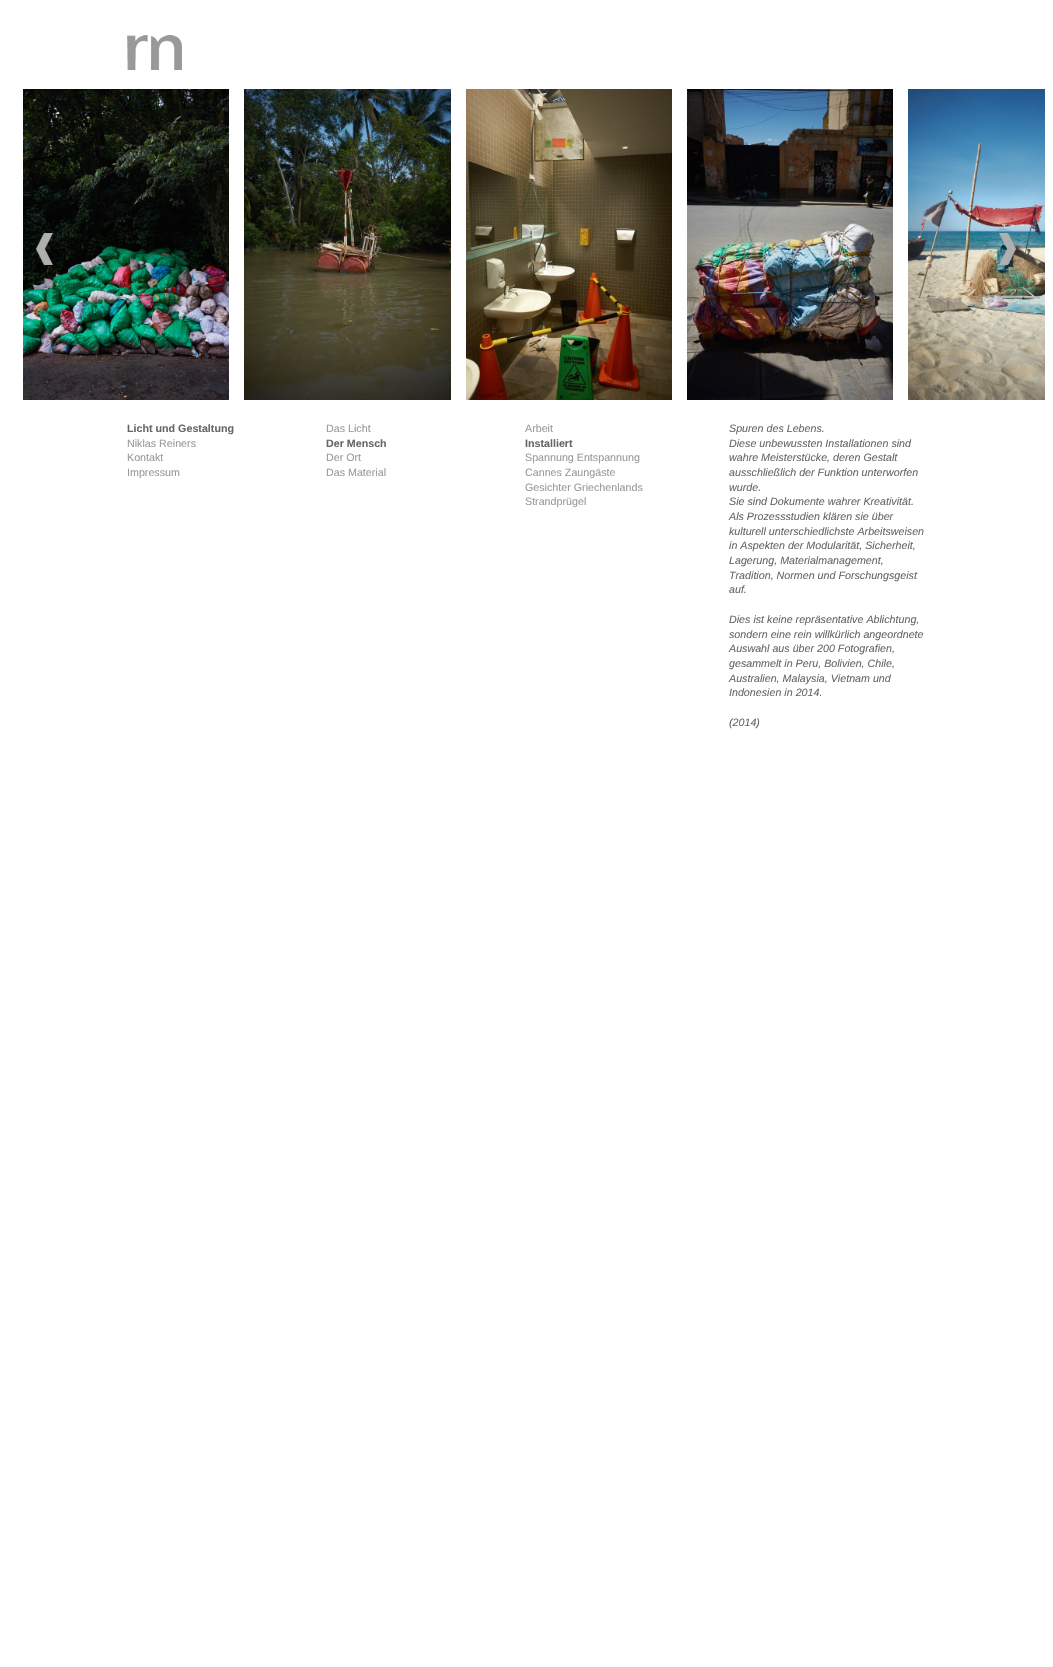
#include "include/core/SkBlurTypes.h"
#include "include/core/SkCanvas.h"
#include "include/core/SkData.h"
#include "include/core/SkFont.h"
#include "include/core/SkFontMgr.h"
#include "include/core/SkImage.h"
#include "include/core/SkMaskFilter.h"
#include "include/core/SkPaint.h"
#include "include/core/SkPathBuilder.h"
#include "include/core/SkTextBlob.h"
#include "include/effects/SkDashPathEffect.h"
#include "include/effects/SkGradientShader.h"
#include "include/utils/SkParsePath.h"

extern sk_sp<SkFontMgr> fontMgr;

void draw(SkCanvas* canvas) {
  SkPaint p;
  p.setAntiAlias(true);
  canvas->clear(SK_ColorWHITE);
  canvas->drawImageRect(SkImages::DeferredFromEncodedData(SkData::MakeFromFileName("images/1.png")), SkRect::MakeLTRB(127, 35, 182, 70), SkSamplingOptions());
  canvas->drawImageRect(SkImages::DeferredFromEncodedData(SkData::MakeFromFileName("images/2.png")), SkRect::MakeLTRB(23, 89, 229, 400), SkSamplingOptions());
  canvas->drawImageRect(SkImages::DeferredFromEncodedData(SkData::MakeFromFileName("images/3.png")), SkRect::MakeLTRB(244, 89, 451, 400), SkSamplingOptions());
  canvas->drawImageRect(SkImages::DeferredFromEncodedData(SkData::MakeFromFileName("images/4.png")), SkRect::MakeLTRB(466, 89, 672, 400), SkSamplingOptions());
  canvas->drawImageRect(SkImages::DeferredFromEncodedData(SkData::MakeFromFileName("images/5.png")), SkRect::MakeLTRB(687, 89, 893, 400), SkSamplingOptions());
  canvas->drawImageRect(SkImages::DeferredFromEncodedData(SkData::MakeFromFileName("images/6.png")), SkRect::MakeLTRB(908, 89, 1045, 400), SkSamplingOptions());
  canvas->drawImageRect(SkImages::DeferredFromEncodedData(SkData::MakeFromFileName("images/7.png")), SkRect::MakeLTRB(36, 233, 53, 265), SkSamplingOptions());
  canvas->drawImageRect(SkImages::DeferredFromEncodedData(SkData::MakeFromFileName("images/8.png")), SkRect::MakeLTRB(999, 233, 1016, 265), SkSamplingOptions());
  SkFont font1(fontMgr->matchFamilyStyle("Liberation Sans", SkFontStyle::Bold()), 10.7f);
  font1.setSubpixel(true);
  p.setColor(SkColorSetRGB(102, 102, 102));
  canvas->drawString("Licht und Gestaltung", 127, 432, font1, p);
  SkFont font2(fontMgr->matchFamilyStyle("Liberation Sans", SkFontStyle::Normal()), 10.7f);
  font2.setSubpixel(true);
  p.setColor(SkColorSetRGB(153, 153, 153));
  canvas->drawString("Niklas Reiners", 127, 447, font2, p);
  canvas->drawString("Kontakt", 127, 461, font2, p);
  canvas->drawString("Impressum", 127, 476, font2, p);
  canvas->drawString("Das Licht", 326, 432, font2, p);
  p.setColor(SkColorSetRGB(102, 102, 102));
  canvas->drawString("Der Mensch", 326, 447, font1, p);
  p.setColor(SkColorSetRGB(153, 153, 153));
  canvas->drawString("Der Ort", 326, 461, font2, p);
  canvas->drawString("Das Material", 326, 476, font2, p);
  canvas->drawString("Arbeit", 525, 432, font2, p);
  p.setColor(SkColorSetRGB(102, 102, 102));
  canvas->drawString("Installiert", 525, 447, font1, p);
  p.setColor(SkColorSetRGB(153, 153, 153));
  canvas->drawString("Spannung Entspannung", 525, 461, font2, p);
  canvas->drawString("Cannes Zaungäste", 525, 476, font2, p);
  canvas->drawString("Gesichter Griechenlands", 525, 491, font2, p);
  canvas->drawString("Strandprügel", 525, 505, font2, p);
  SkFont font3(fontMgr->matchFamilyStyle("Liberation Sans", SkFontStyle::Italic()), 10.7f);
  font3.setSubpixel(true);
  p.setColor(SkColorSetRGB(102, 102, 102));
  canvas->drawString("Spuren des Lebens.", 729, 432, font3, p);
  canvas->drawString("Diese unbewussten Installationen sind", 729, 447, font3, p);
  canvas->drawString("wahre Meisterstücke, deren Gestalt", 729, 461, font3, p);
  canvas->drawString("ausschließlich der Funktion unterworfen", 729, 476, font3, p);
  canvas->drawString("wurde.", 729, 491, font3, p);
  canvas->drawString("Sie sind Dokumente wahrer Kreativität.", 729, 505, font3, p);
  canvas->drawString("Als Prozessstudien klären sie über", 729, 520, font3, p);
  canvas->drawString("kulturell unterschiedlichste Arbeitsweisen", 729, 535, font3, p);
  canvas->drawString("in Aspekten der Modularität, Sicherheit,", 729, 549, font3, p);
  canvas->drawString("Lagerung, Materialmanagement,", 729, 564, font3, p);
  canvas->drawString("Tradition, Normen und Forschungsgeist", 729, 579, font3, p);
  canvas->drawString("auf.", 729, 593, font3, p);
  canvas->drawString("Dies ist keine repräsentative Ablichtung,", 729, 623, font3, p);
  canvas->drawString("sondern eine rein willkürlich angeordnete", 729, 638, font3, p);
  canvas->drawString("Auswahl aus über 200 Fotografien,", 729, 652, font3, p);
  canvas->drawString("gesammelt in Peru, Bolivien, Chile,", 729, 667, font3, p);
  canvas->drawString("Australien, Malaysia, Vietnam und", 729, 682, font3, p);
  canvas->drawString("Indonesien in 2014.", 729, 696, font3, p);
  canvas->drawString("(2014)", 729, 726, font3, p);
}
